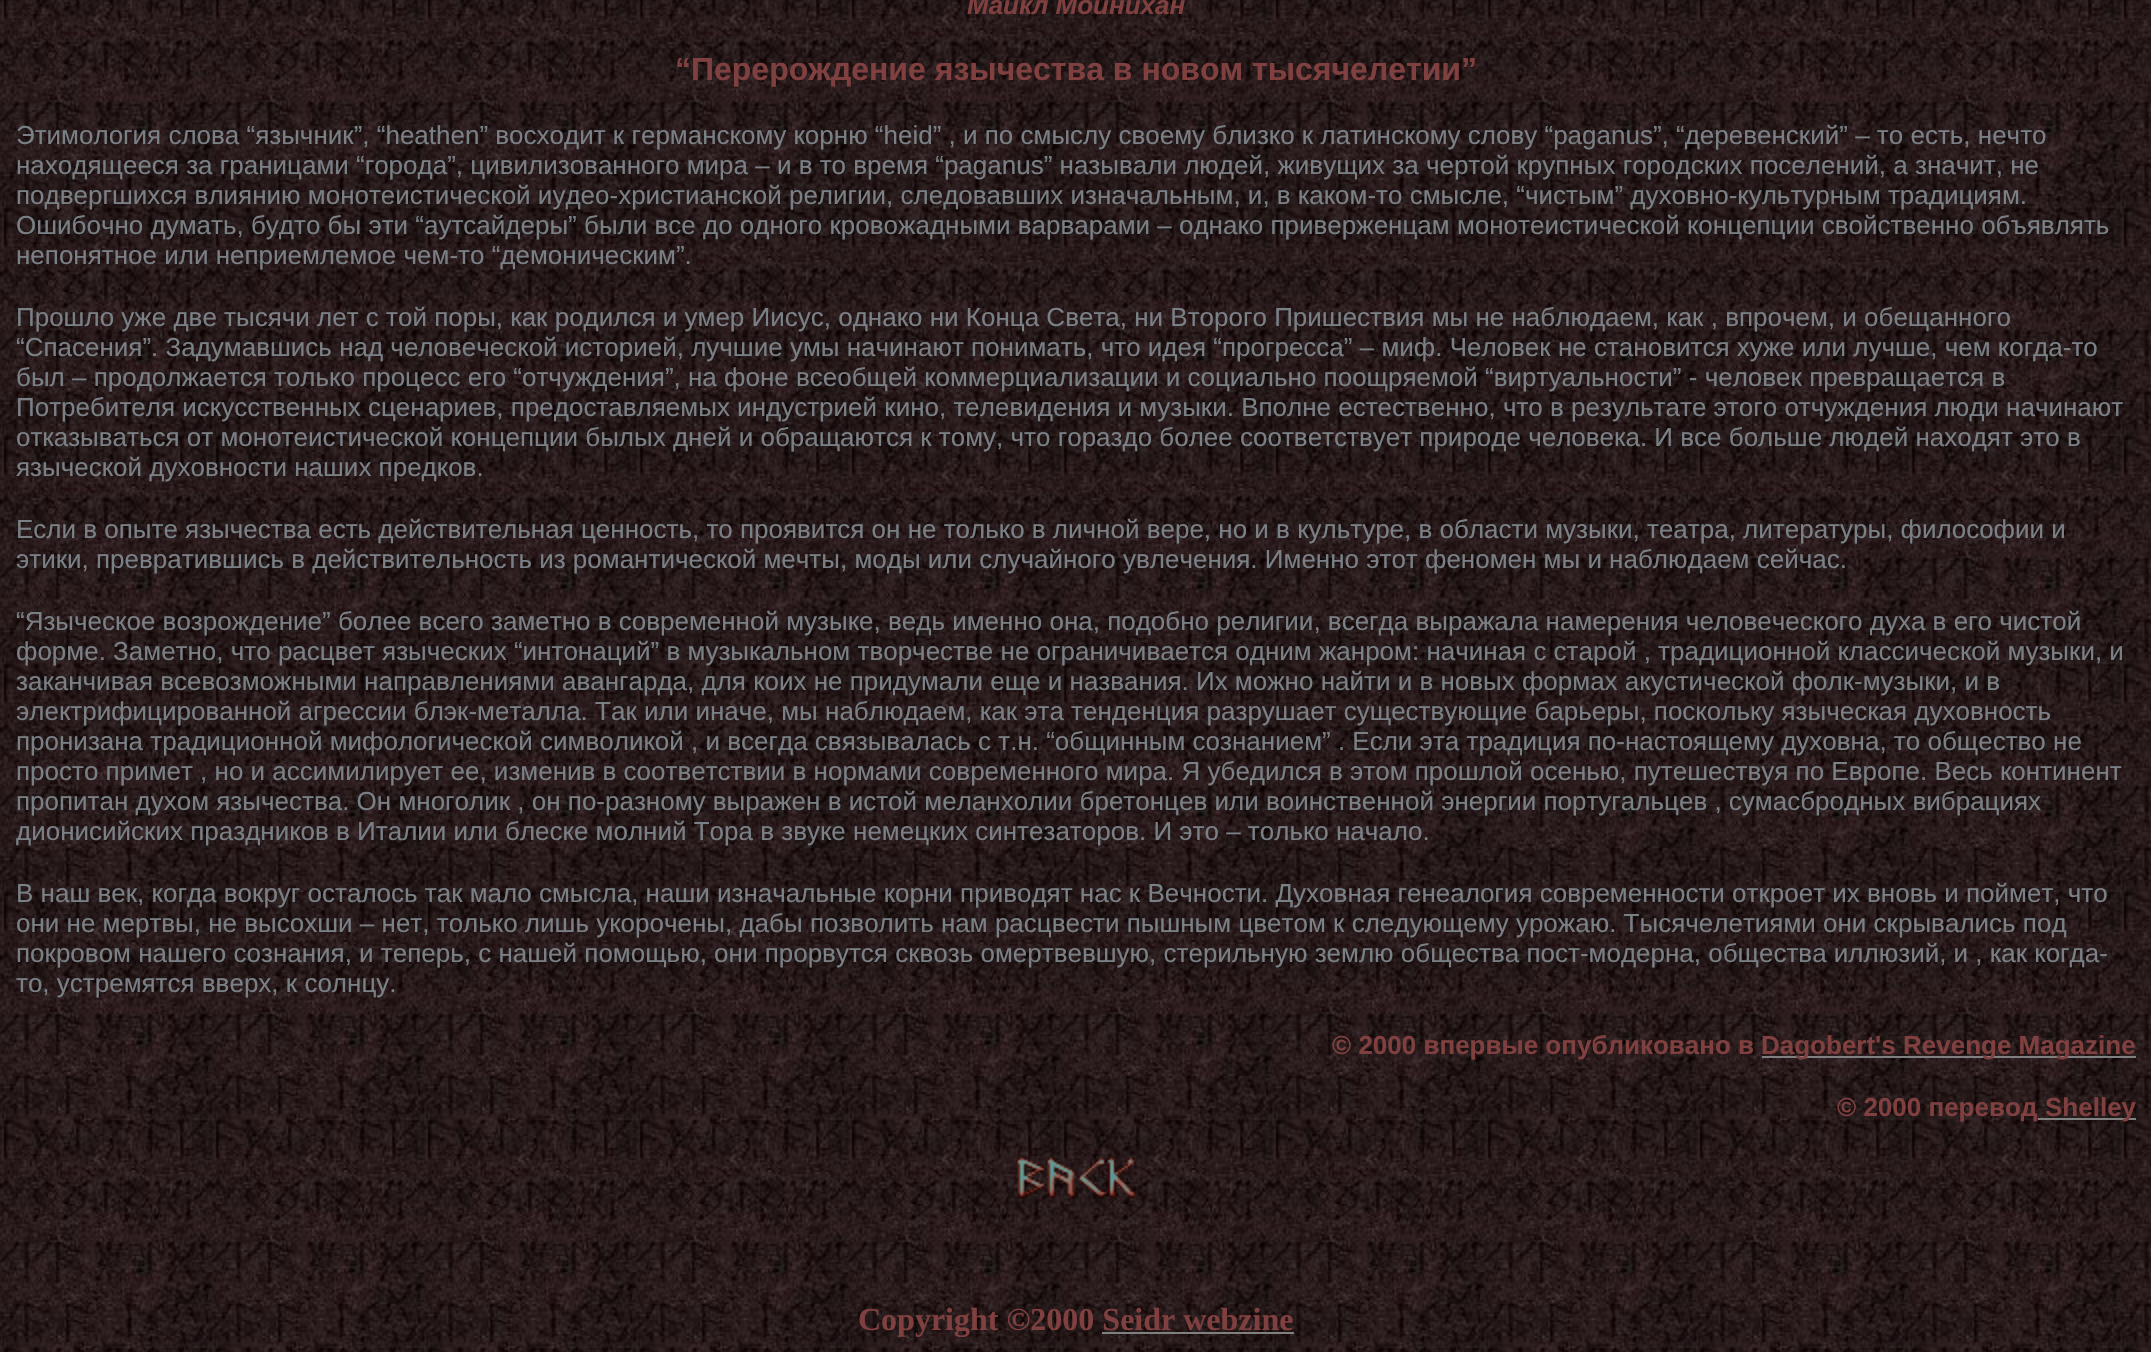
#include "include/core/SkBlurTypes.h"
#include "include/core/SkCanvas.h"
#include "include/core/SkData.h"
#include "include/core/SkFont.h"
#include "include/core/SkFontMgr.h"
#include "include/core/SkImage.h"
#include "include/core/SkMaskFilter.h"
#include "include/core/SkPaint.h"
#include "include/core/SkPathBuilder.h"
#include "include/core/SkTextBlob.h"
#include "include/effects/SkDashPathEffect.h"
#include "include/effects/SkGradientShader.h"
#include "include/utils/SkParsePath.h"

extern sk_sp<SkFontMgr> fontMgr;

void draw(SkCanvas* canvas) {
  SkPaint p;
  p.setAntiAlias(true);
  canvas->clear(SK_ColorWHITE);
  canvas->drawImageRect(SkImages::DeferredFromEncodedData(SkData::MakeFromFileName("images/1.png")), SkRect::MakeLTRB(0, 0, 2151, 1352), SkSamplingOptions());
  p.setColor(SkColorSetRGB(128, 128, 128));
  canvas->drawRect(SkRect::MakeLTRB(1762, 1056, 2136, 1058), p);
  canvas->drawRect(SkRect::MakeLTRB(2038, 1118, 2136, 1120), p);
  canvas->drawImageRect(SkImages::DeferredFromEncodedData(SkData::MakeFromFileName("images/2.png")), SkRect::MakeLTRB(1015, 1157, 1137, 1199), SkSamplingOptions());
  SkFont font1(fontMgr->matchFamilyStyle("Liberation Sans", SkFontStyle::BoldItalic()), 26);
  font1.setSubpixel(true);
  p.setColor(SkColorSetRGB(128, 64, 64));
  canvas->drawString("Майкл Мойнихан", 967, 14, font1, p);
  SkFont font2(fontMgr->matchFamilyStyle("Liberation Sans", SkFontStyle::Bold()), 32);
  font2.setSubpixel(true);
  canvas->drawString("“Перерождение язычества в новом тысячелетии”", 675, 80, font2, p);
  SkFont font3(fontMgr->matchFamilyStyle("Liberation Sans", SkFontStyle::Normal()), 26);
  font3.setSubpixel(true);
  p.setColor(SkColorSetRGB(121, 128, 134));
  canvas->drawString("Этимология слова “язычник”, “heathen” восходит к германскому корню “heid” , и по смыслу своему близко к латинскому слову “paganus”, “деревенский” – то есть, нечто", 16, 144, font3, p);
  canvas->drawString("находящееся за границами “города”, цивилизованного мира – и в то время “paganus” называли людей, живущих за чертой крупных городских поселений, а значит, не", 16, 174, font3, p);
  canvas->drawString("подвергшихся влиянию монотеистической иудео-христианской религии, следовавших изначальным, и, в каком-то смысле, “чистым” духовно-культурным традициям.", 16, 204, font3, p);
  canvas->drawString("Ошибочно думать, будто бы эти “аутсайдеры” были все до одного кровожадными варварами – однако приверженцам монотеистической концепции свойственно объявлять", 16, 234, font3, p);
  canvas->drawString("непонятное или неприемлемое чем-то “демоническим”.", 16, 264, font3, p);
  canvas->drawString("Прошло уже две тысячи лет с той поры, как родился и умер Иисус, однако ни Конца Света, ни Второго Пришествия мы не наблюдаем, как , впрочем, и обещанного", 16, 326, font3, p);
  canvas->drawString("“Спасения”. Задумавшись над человеческой историей, лучшие умы начинают понимать, что идея “прогресса” – миф. Человек не становится хуже или лучше, чем когда-то", 16, 356, font3, p);
  canvas->drawString("был – продолжается только процесс его “отчуждения”, на фоне всеобщей коммерциализации и социально поощряемой “виртуальности” - человек превращается в", 16, 386, font3, p);
  canvas->drawString("Потребителя искусственных сценариев, предоставляемых индустрией кино, телевидения и музыки. Вполне естественно, что в результате этого отчуждения люди начинают", 16, 416, font3, p);
  canvas->drawString("отказываться от монотеистической концепции былых дней и обращаются к тому, что гораздо более соответствует природе человека. И все больше людей находят это в", 16, 446, font3, p);
  canvas->drawString("языческой духовности наших предков.", 16, 476, font3, p);
  canvas->drawString("Если в опыте язычества есть действительная ценность, то проявится он не только в личной вере, но и в культуре, в области музыки, театра, литературы, философии и", 16, 538, font3, p);
  canvas->drawString("этики, превратившись в действительность из романтической мечты, моды или случайного увлечения. Именно этот феномен мы и наблюдаем сейчас.", 16, 568, font3, p);
  canvas->drawString("“Языческое возрождение” более всего заметно в современной музыке, ведь именно она, подобно религии, всегда выражала намерения человеческого духа в его чистой", 16, 630, font3, p);
  canvas->drawString("форме. Заметно, что расцвет языческих “интонаций” в музыкальном творчестве не ограничивается одним жанром: начиная с старой , традиционной классической музыки, и", 16, 660, font3, p);
  canvas->drawString("заканчивая всевозможными направлениями авангарда, для коих не придумали еще и названия. Их можно найти и в новых формах акустической фолк-музыки, и в", 16, 690, font3, p);
  canvas->drawString("электрифицированной агрессии блэк-металла. Так или иначе, мы наблюдаем, как эта тенденция разрушает существующие барьеры, поскольку языческая духовность", 16, 720, font3, p);
  canvas->drawString("пронизана традиционной мифологической символикой , и всегда связывалась с т.н. “общинным сознанием” . Если эта традиция по-настоящему духовна, то общество не", 16, 750, font3, p);
  canvas->drawString("просто примет , но и ассимилирует ее, изменив в соответствии в нормами современного мира. Я убедился в этом прошлой осенью, путешествуя по Европе. Весь континент", 16, 780, font3, p);
  canvas->drawString("пропитан духом язычества. Он многолик , он по-разному выражен в истой меланхолии бретонцев или воинственной энергии португальцев , сумасбродных вибрациях", 16, 810, font3, p);
  canvas->drawString("дионисийских праздников в Италии или блеске молний Тора в звуке немецких синтезаторов. И это – только начало.", 16, 840, font3, p);
  canvas->drawString("В наш век, когда вокруг осталось так мало смысла, наши изначальные корни приводят нас к Вечности. Духовная генеалогия современности откроет их вновь и поймет, что", 16, 902, font3, p);
  canvas->drawString("они не мертвы, не высохши – нет, только лишь укорочены, дабы позволить нам расцвести пышным цветом к следующему урожаю. Тысячелетиями они скрывались под", 16, 932, font3, p);
  canvas->drawString("покровом нашего сознания, и теперь, с нашей помощью, они прорвутся сквозь омертвевшую, стерильную землю общества пост-модерна, общества иллюзий, и , как когда-", 16, 962, font3, p);
  canvas->drawString("то, устремятся вверх, к солнцу.", 16, 992, font3, p);
  SkFont font4(fontMgr->matchFamilyStyle("Liberation Sans", SkFontStyle::Bold()), 26);
  font4.setSubpixel(true);
  p.setColor(SkColorSetRGB(128, 64, 64));
  canvas->drawString("© 2000 впервые опубликовано в", 1332, 1054, font4, p);
  canvas->drawString("Dagobert's Revenge Magazine", 1761, 1054, font4, p);
  canvas->drawString("© 2000 перевод", 1837, 1116, font4, p);
  canvas->drawString("Shelley", 2045, 1116, font4, p);
  SkFont font5(fontMgr->matchFamilyStyle("Liberation Serif", SkFontStyle::Bold()), 32);
  font5.setSubpixel(true);
  canvas->drawString("Copyright ©2000 Seidr webzine", 858, 1330, font5, p);
  p.setColor(SkColorSetRGB(128, 128, 128));
  canvas->drawRect(SkRect::MakeLTRB(1102, 1332, 1294, 1334), p);
}
